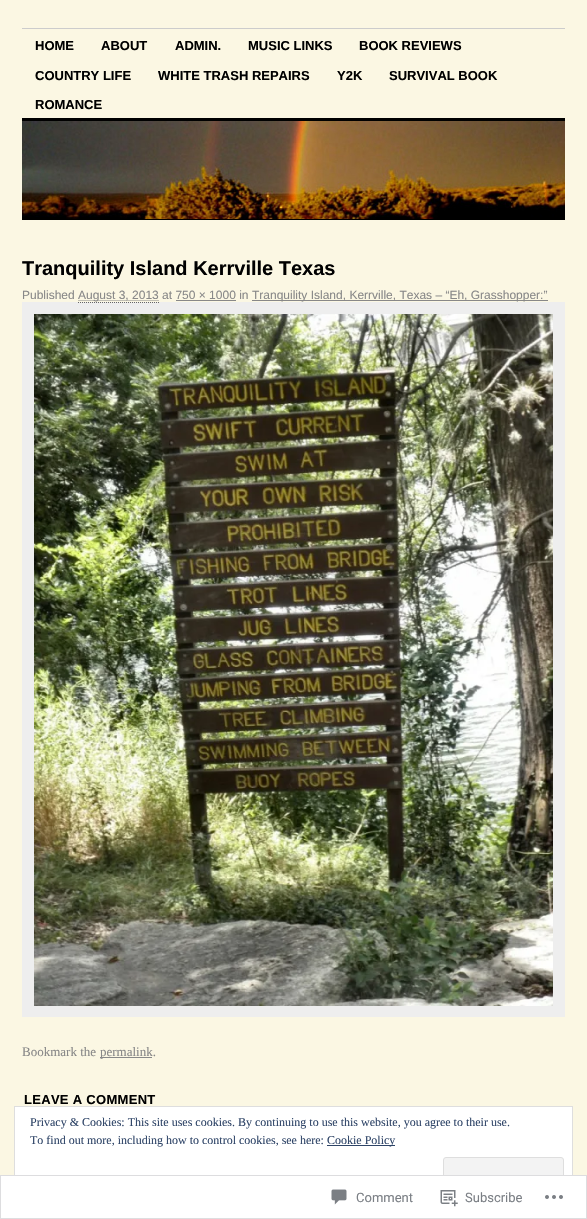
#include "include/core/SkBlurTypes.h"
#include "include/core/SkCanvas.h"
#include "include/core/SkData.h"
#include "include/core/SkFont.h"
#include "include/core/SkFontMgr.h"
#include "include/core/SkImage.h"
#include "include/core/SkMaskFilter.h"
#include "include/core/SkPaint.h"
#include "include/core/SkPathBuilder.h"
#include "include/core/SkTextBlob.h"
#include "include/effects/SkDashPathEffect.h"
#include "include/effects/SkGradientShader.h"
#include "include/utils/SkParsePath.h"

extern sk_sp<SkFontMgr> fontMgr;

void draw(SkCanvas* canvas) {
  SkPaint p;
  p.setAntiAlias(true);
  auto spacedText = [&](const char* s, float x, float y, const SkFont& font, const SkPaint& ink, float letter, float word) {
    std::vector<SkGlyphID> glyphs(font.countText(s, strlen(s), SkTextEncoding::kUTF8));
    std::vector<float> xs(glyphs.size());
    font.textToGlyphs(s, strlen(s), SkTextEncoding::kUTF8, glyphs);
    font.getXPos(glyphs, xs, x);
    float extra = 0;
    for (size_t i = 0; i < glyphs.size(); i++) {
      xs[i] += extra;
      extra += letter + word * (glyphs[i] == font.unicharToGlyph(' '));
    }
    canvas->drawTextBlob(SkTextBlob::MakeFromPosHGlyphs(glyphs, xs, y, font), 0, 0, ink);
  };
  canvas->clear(SkColorSetRGB(251, 247, 227));
  p.setColor(SkColorSetRGB(204, 204, 204));
  canvas->drawRect(SkRect::MakeLTRB(22, 28, 565, 29), p);
  p.setColor(SK_ColorBLACK);
  canvas->drawRect(SkRect::MakeLTRB(22, 118, 565, 121), p);
  canvas->drawImageRect(SkImages::DeferredFromEncodedData(SkData::MakeFromFileName("images/1.png")), SkRect::MakeLTRB(22, 121, 565, 219), SkSamplingOptions());
  canvas->drawRect(SkRect::MakeLTRB(22, 219, 565, 220), p);
  p.setColor(SkColorSetRGB(238, 238, 238));
  canvas->drawRect(SkRect::MakeLTRB(22, 302, 565, 1017), p);
  p.setStyle(SkPaint::kStroke_Style);
  p.setStrokeWidth(1);
  p.setColor(SkColorSetRGB(102, 102, 102));
  p.setPathEffect(SkDashPathEffect::Make({{1, 1}}, 0));
  canvas->drawPath(SkPathBuilder().moveTo(78, 302.5f).lineTo(159, 302.5f).detach(), p);
  p.setPathEffect(nullptr);
  p.setColor(SkColorSetRGB(136, 136, 136));
  p.setPathEffect(SkDashPathEffect::Make({{1, 1}}, 0));
  canvas->drawPath(SkPathBuilder().moveTo(78.5f, 300.5f).lineTo(159, 300.5f).detach(), p);
  p.setPathEffect(nullptr);
  p.setStyle(SkPaint::kFill_Style);
  canvas->drawRect(SkRect::MakeLTRB(252, 300, 548, 301), p);
  canvas->drawRect(SkRect::MakeLTRB(176, 300, 236, 301), p);
  canvas->drawImageRect(SkImages::DeferredFromEncodedData(SkData::MakeFromFileName("images/2.png")), SkRect::MakeLTRB(34, 314, 553, 1006), SkSamplingOptions());
  canvas->drawRect(SkRect::MakeLTRB(100, 1057, 152, 1058), p);
  p.setColor(SK_ColorWHITE);
  canvas->drawRect(SkRect::MakeLTRB(14.5f, 1106.5f, 572.5f, 1204.5f), p);
  p.setStyle(SkPaint::kStroke_Style);
  p.setColor(SkColorSetRGB(222, 222, 222));
  canvas->drawRect(SkRect::MakeLTRB(14.5f, 1106.5f, 572.5f, 1204.5f), p);
  p.setStyle(SkPaint::kFill_Style);
  p.setColor(SkColorSetRGB(46, 68, 103));
  canvas->drawRect(SkRect::MakeLTRB(327, 1145, 395, 1146), p);
  p.setColor(SkColorSetRGB(243, 243, 243));
  canvas->drawRoundRect(SkRect::MakeLTRB(443.5f, 1157.5f, 563.5f, 1195.5f), 2.5f, 2.5f, p);
  p.setStyle(SkPaint::kStroke_Style);
  p.setColor(SkColorSetRGB(222, 222, 222));
  canvas->drawRoundRect(SkRect::MakeLTRB(443.5f, 1157.5f, 563.5f, 1195.5f), 2.5f, 2.5f, p);
  p.setStyle(SkPaint::kFill_Style);
  p.setColor(SkColorSetARGB(250, 255, 255, 255));
  canvas->drawRect(SkRect::MakeLTRB(0, 1175, 587, 1219), p);
  p.setStyle(SkPaint::kStroke_Style);
  p.setColor(SkColorSetARGB(250, 220, 220, 222));
  canvas->drawRect(SkRect::MakeLTRB(0.5f, 1175.5f, 586.5f, 1218.5f), p);
  canvas->drawImageRect(SkImages::DeferredFromEncodedData(SkData::MakeFromFileName("images/3.png")), SkRect::MakeLTRB(331, 1189, 347, 1205), SkSamplingOptions());
  canvas->drawImageRect(SkImages::DeferredFromEncodedData(SkData::MakeFromFileName("images/4.png")), SkRect::MakeLTRB(440, 1190, 458, 1207), SkSamplingOptions());
  canvas->drawImageRect(SkImages::DeferredFromEncodedData(SkData::MakeFromFileName("images/5.png")), SkRect::MakeLTRB(545, 1195, 563, 1199), SkSamplingOptions());
  SkFont font1(fontMgr->matchFamilyStyle("Liberation Sans", SkFontStyle::Bold()), 13);
  font1.setSubpixel(true);
  p.setStyle(SkPaint::kFill_Style);
  p.setColor(SK_ColorBLACK);
  canvas->drawString("HOME", 35, 50, font1, p);
  canvas->drawString("ABOUT", 101, 50, font1, p);
  canvas->drawString("ADMIN.", 175, 50, font1, p);
  canvas->drawString("MUSIC LINKS", 248, 50, font1, p);
  canvas->drawString("BOOK REVIEWS", 359, 50, font1, p);
  canvas->drawString("COUNTRY LIFE", 35, 80, font1, p);
  canvas->drawString("WHITE TRASH REPAIRS", 158, 80, font1, p);
  canvas->drawString("Y2K", 337, 80, font1, p);
  canvas->drawString("SURVIVAL BOOK", 389, 80, font1, p);
  canvas->drawString("ROMANCE", 35, 109, font1, p);
  SkFont font2(fontMgr->matchFamilyStyle("Liberation Sans", SkFontStyle::Bold()), 20);
  font2.setSubpixel(true);
  canvas->drawString("Tranquility Island Kerrville Texas", 22, 275, font2, p);
  SkFont font3(fontMgr->matchFamilyStyle("Liberation Sans", SkFontStyle::Normal()), 12);
  font3.setSubpixel(true);
  p.setColor(SkColorSetRGB(136, 136, 136));
  canvas->drawString("Published", 22, 299, font3, p);
  canvas->drawString("August 3, 2013 at 750 × 1000 in", 78, 299, font3, p);
  canvas->drawString("Tranquility Island, Kerrville, Texas – “Eh, Grasshopper:”", 252, 299, font3, p);
  SkFont font4(fontMgr->matchFamilyStyle("Liberation Serif", SkFontStyle::Normal()), 13);
  font4.setSubpixel(true);
  canvas->drawString("Bookmark the", 22, 1056, font4, p);
  canvas->drawString("permalink.", 100, 1056, font4, p);
  p.setColor(SK_ColorBLACK);
  spacedText("LEAVE A COMMENT", 24, 1104, font1, p, 0.3f, 0);
  SkFont font5(fontMgr->matchFamilyStyle("Liberation Serif", SkFontStyle::Normal()), 12);
  font5.setSubpixel(true);
  p.setColor(SkColorSetRGB(46, 68, 103));
  canvas->drawString("Privacy & Cookies: This site uses cookies. By continuing to use this website, you agree to their use.", 30, 1126, font5, p);
  canvas->drawString("To find out more, including how to control cookies, see here:", 30, 1144, font5, p);
  canvas->drawString("Cookie Policy", 327, 1144, font5, p);
  SkFont font6(fontMgr->matchFamilyStyle("Roboto", SkFontStyle::Normal()), 13);
  font6.setSubpixel(true);
  p.setColor(SkColorSetRGB(123, 127, 133));
  canvas->drawString("Comment", 356, 1202, font6, p);
  canvas->drawString("Subscribe", 465, 1202, font6, p);
}
